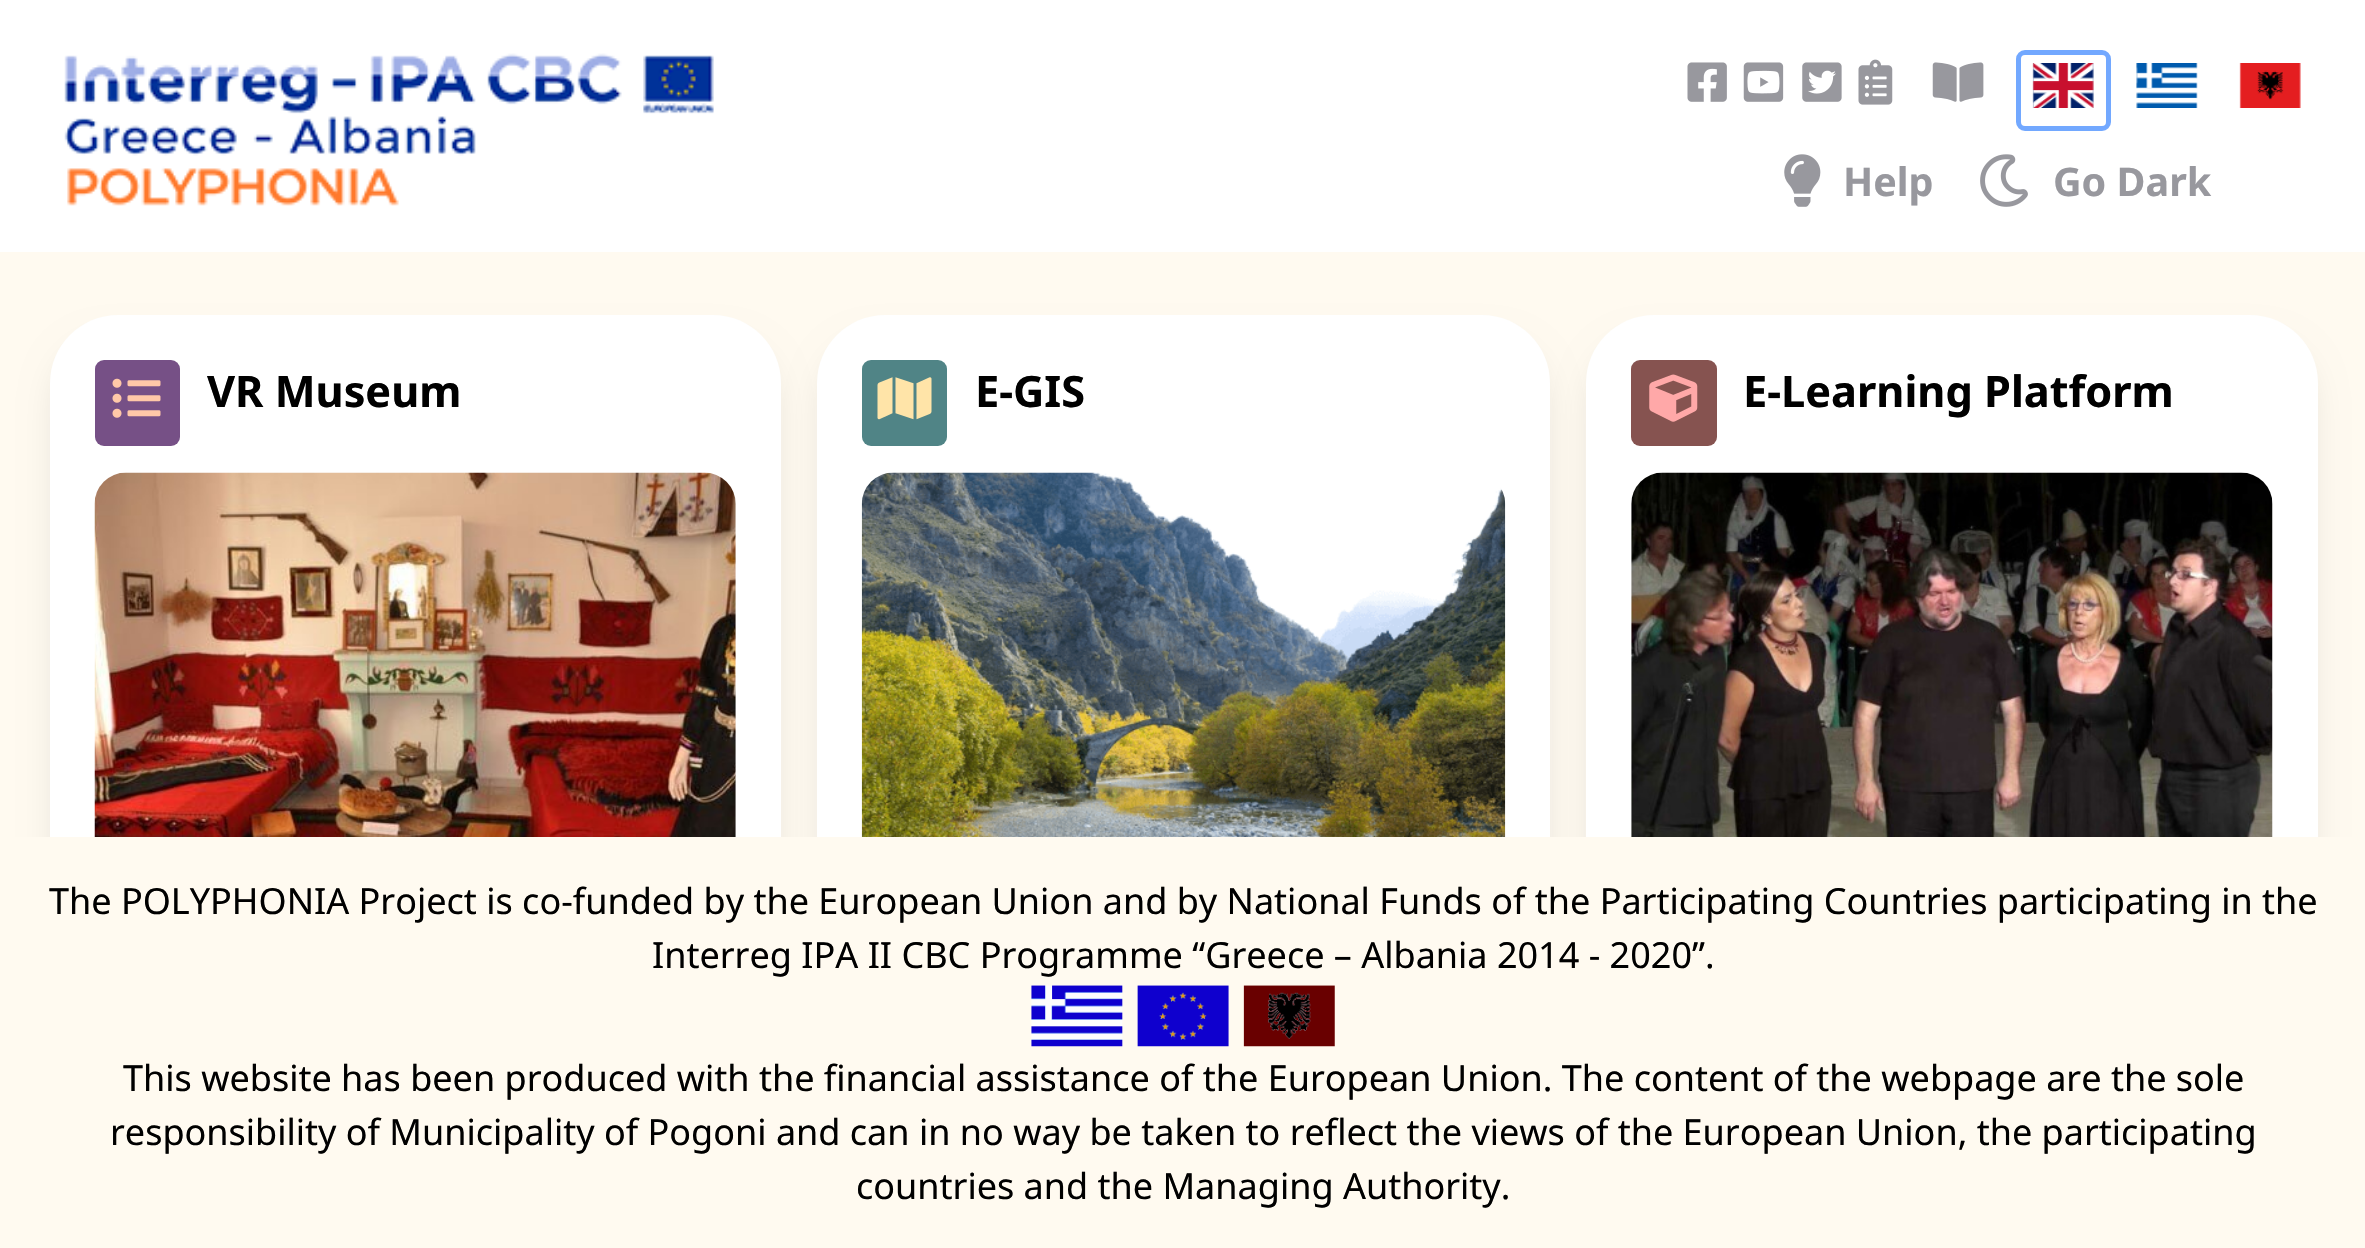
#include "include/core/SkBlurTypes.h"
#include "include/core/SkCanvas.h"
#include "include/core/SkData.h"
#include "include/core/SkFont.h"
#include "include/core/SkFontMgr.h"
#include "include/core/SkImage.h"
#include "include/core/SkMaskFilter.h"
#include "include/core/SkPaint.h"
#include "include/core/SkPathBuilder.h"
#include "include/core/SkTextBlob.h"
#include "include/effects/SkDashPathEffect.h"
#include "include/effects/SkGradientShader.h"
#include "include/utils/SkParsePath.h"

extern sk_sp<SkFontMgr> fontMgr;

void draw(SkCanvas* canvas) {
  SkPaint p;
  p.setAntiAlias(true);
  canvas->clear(SkColorSetRGB(255, 250, 240));
  p.setColor(SK_ColorWHITE);
  canvas->drawRect(SkRect::MakeLTRB(0, 0, 2365, 252), p);
  canvas->drawImageRect(SkImages::DeferredFromEncodedData(SkData::MakeFromFileName("images/1.png")), SkRect::MakeLTRB(64, 53, 714, 206), SkSamplingOptions());
  canvas->drawImageRect(SkImages::DeferredFromEncodedData(SkData::MakeFromFileName("images/2.png")), SkRect::MakeLTRB(1687, 62, 1727, 102), SkSamplingOptions());
  canvas->drawImageRect(SkImages::DeferredFromEncodedData(SkData::MakeFromFileName("images/3.png")), SkRect::MakeLTRB(1743, 62, 1784, 102), SkSamplingOptions());
  canvas->drawImageRect(SkImages::DeferredFromEncodedData(SkData::MakeFromFileName("images/4.png")), SkRect::MakeLTRB(1802, 62, 1842, 102), SkSamplingOptions());
  canvas->drawImageRect(SkImages::DeferredFromEncodedData(SkData::MakeFromFileName("images/5.png")), SkRect::MakeLTRB(1858, 59, 1893, 105), SkSamplingOptions());
  canvas->drawImageRect(SkImages::DeferredFromEncodedData(SkData::MakeFromFileName("images/6.png")), SkRect::MakeLTRB(1932, 62, 1984, 102), SkSamplingOptions());
  p.setStyle(SkPaint::kStroke_Style);
  p.setStrokeWidth(5);
  p.setColor(SkColorSetRGB(114, 168, 255));
  canvas->drawRoundRect(SkRect::MakeLTRB(2018.5f, 52.5f, 2108.5f, 128.5f), 6.5f, 6.5f, p);
  canvas->drawImageRect(SkImages::DeferredFromEncodedData(SkData::MakeFromFileName("images/7.png")), SkRect::MakeLTRB(2032, 63, 2094, 108), SkSamplingOptions());
  canvas->drawImageRect(SkImages::DeferredFromEncodedData(SkData::MakeFromFileName("images/8.png")), SkRect::MakeLTRB(2136, 63, 2198, 108), SkSamplingOptions());
  canvas->drawImageRect(SkImages::DeferredFromEncodedData(SkData::MakeFromFileName("images/9.png")), SkRect::MakeLTRB(2239, 63, 2301, 108), SkSamplingOptions());
  canvas->drawImageRect(SkImages::DeferredFromEncodedData(SkData::MakeFromFileName("images/10.png")), SkRect::MakeLTRB(1784, 154, 1821, 207), SkSamplingOptions());
  canvas->drawImageRect(SkImages::DeferredFromEncodedData(SkData::MakeFromFileName("images/11.png")), SkRect::MakeLTRB(1980, 154, 2028, 207), SkSamplingOptions());
  canvas->save();
  canvas->clipRect(SkRect::MakeLTRB(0, 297, 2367, 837));
  p.setStyle(SkPaint::kFill_Style);
  p.setColor(SkColorSetARGB(26, 0, 0, 0));
  p.setMaskFilter(SkMaskFilter::MakeBlur(kNormal_SkBlurStyle, 17));
  canvas->drawRoundRect(SkRect::MakeLTRB(56, 344, 774, 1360), 61, 61, p);
  p.setMaskFilter(nullptr);
  canvas->restore();
  p.setColor(SK_ColorWHITE);
  canvas->drawPath(SkPathBuilder().moveTo(118, 315).lineTo(713, 315).cubicTo(750.5f, 315, 781, 345.5f, 781, 383).lineTo(781, 837).lineTo(50, 837).lineTo(50, 383).cubicTo(50, 345.5f, 80.5f, 315, 118, 315).close().detach(), p);
  p.setColor(SkColorSetRGB(118, 80, 134));
  canvas->drawRoundRect(SkRect::MakeLTRB(95, 360, 180, 446), 9, 9, p);
  canvas->drawImageRect(SkImages::DeferredFromEncodedData(SkData::MakeFromFileName("images/12.png")), SkRect::MakeLTRB(112, 378, 161, 418), SkSamplingOptions());
  canvas->drawImageRect(SkImages::DeferredFromEncodedData(SkData::MakeFromFileName("images/13.png")), SkRect::MakeLTRB(94, 472, 736, 837), SkSamplingOptions());
  canvas->drawImageRect(SkImages::DeferredFromEncodedData(SkData::MakeFromFileName("images/18.png")), SkRect::MakeLTRB(1031, 985, 1335, 1047), SkSamplingOptions());
  canvas->save();
  canvas->clipRect(SkRect::MakeLTRB(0, 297, 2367, 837));
  p.setColor(SkColorSetARGB(26, 0, 0, 0));
  p.setMaskFilter(SkMaskFilter::MakeBlur(kNormal_SkBlurStyle, 17));
  canvas->drawRoundRect(SkRect::MakeLTRB(824, 344, 1544, 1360), 61, 61, p);
  p.setMaskFilter(nullptr);
  canvas->restore();
  p.setColor(SK_ColorWHITE);
  canvas->drawPath(SkPathBuilder().moveTo(885, 315).lineTo(1482, 315).cubicTo(1519.5f, 315, 1550, 345.5f, 1550, 383).lineTo(1550, 837).lineTo(817, 837).lineTo(817, 383).cubicTo(817, 345.5f, 847.5f, 315, 885, 315).close().detach(), p);
  p.setColor(SkColorSetRGB(80, 132, 134));
  canvas->drawRoundRect(SkRect::MakeLTRB(862, 360, 947, 446), 9, 9, p);
  canvas->drawImageRect(SkImages::DeferredFromEncodedData(SkData::MakeFromFileName("images/14.png")), SkRect::MakeLTRB(877, 377, 932, 420), SkSamplingOptions());
  canvas->drawImageRect(SkImages::DeferredFromEncodedData(SkData::MakeFromFileName("images/15.png")), SkRect::MakeLTRB(861, 472, 1506, 837), SkSamplingOptions());
  canvas->save();
  canvas->clipRect(SkRect::MakeLTRB(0, 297, 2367, 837));
  p.setColor(SkColorSetARGB(26, 0, 0, 0));
  p.setMaskFilter(SkMaskFilter::MakeBlur(kNormal_SkBlurStyle, 17));
  canvas->drawRoundRect(SkRect::MakeLTRB(1593, 344, 2311, 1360), 61, 61, p);
  p.setMaskFilter(nullptr);
  canvas->restore();
  p.setColor(SK_ColorWHITE);
  canvas->drawPath(SkPathBuilder().moveTo(1654, 315).lineTo(2250, 315).cubicTo(2287.5f, 315, 2318, 345.5f, 2318, 383).lineTo(2318, 837).lineTo(1586, 837).lineTo(1586, 383).cubicTo(1586, 345.5f, 1616.5f, 315, 1654, 315).close().detach(), p);
  p.setColor(SkColorSetRGB(134, 83, 80));
  canvas->drawRoundRect(SkRect::MakeLTRB(1631, 360, 1717, 446), 9, 9, p);
  canvas->drawImageRect(SkImages::DeferredFromEncodedData(SkData::MakeFromFileName("images/16.png")), SkRect::MakeLTRB(1649, 374, 1698, 422), SkSamplingOptions());
  canvas->drawImageRect(SkImages::DeferredFromEncodedData(SkData::MakeFromFileName("images/17.png")), SkRect::MakeLTRB(1631, 472, 2273, 837), SkSamplingOptions());
  SkFont font1(fontMgr->matchFamilyStyle("Noto Sans", SkFontStyle::Bold()), 39.5f);
  font1.setSubpixel(true);
  p.setColor(SkColorSetRGB(152, 152, 158));
  canvas->drawString("Help", 1843, 196, font1, p);
  canvas->drawString("Go Dark", 2053, 196, font1, p);
  SkFont font2(fontMgr->matchFamilyStyle("Noto Sans", SkFontStyle::Bold()), 43.25f);
  font2.setSubpixel(true);
  p.setColor(SK_ColorBLACK);
  canvas->drawString("VR Museum", 207, 407, font2, p);
  canvas->drawString("E-GIS", 975, 407, font2, p);
  canvas->drawString("E-Learning Platform", 1743, 407, font2, p);
  SkFont font3(fontMgr->matchFamilyStyle("Noto Sans", SkFontStyle::Normal()), 36);
  font3.setSubpixel(true);
  canvas->drawString("The POLYPHONIA Project is co-funded by the European Union and by National Funds of the Participating Countries participating in the", 49, 914, font3, p);
  canvas->drawString("Interreg IPA II CBC Programme “Greece – Albania 2014 - 2020”.", 652, 968, font3, p);
  canvas->drawString("This website has been produced with the financial assistance of the European Union. The content of the webpage are the sole", 123, 1091, font3, p);
  canvas->drawString("responsibility of Municipality of Pogoni and can in no way be taken to reflect the views of the European Union, the participating", 110, 1145, font3, p);
  canvas->drawString("countries and the Managing Authority.", 856, 1199, font3, p);
}
